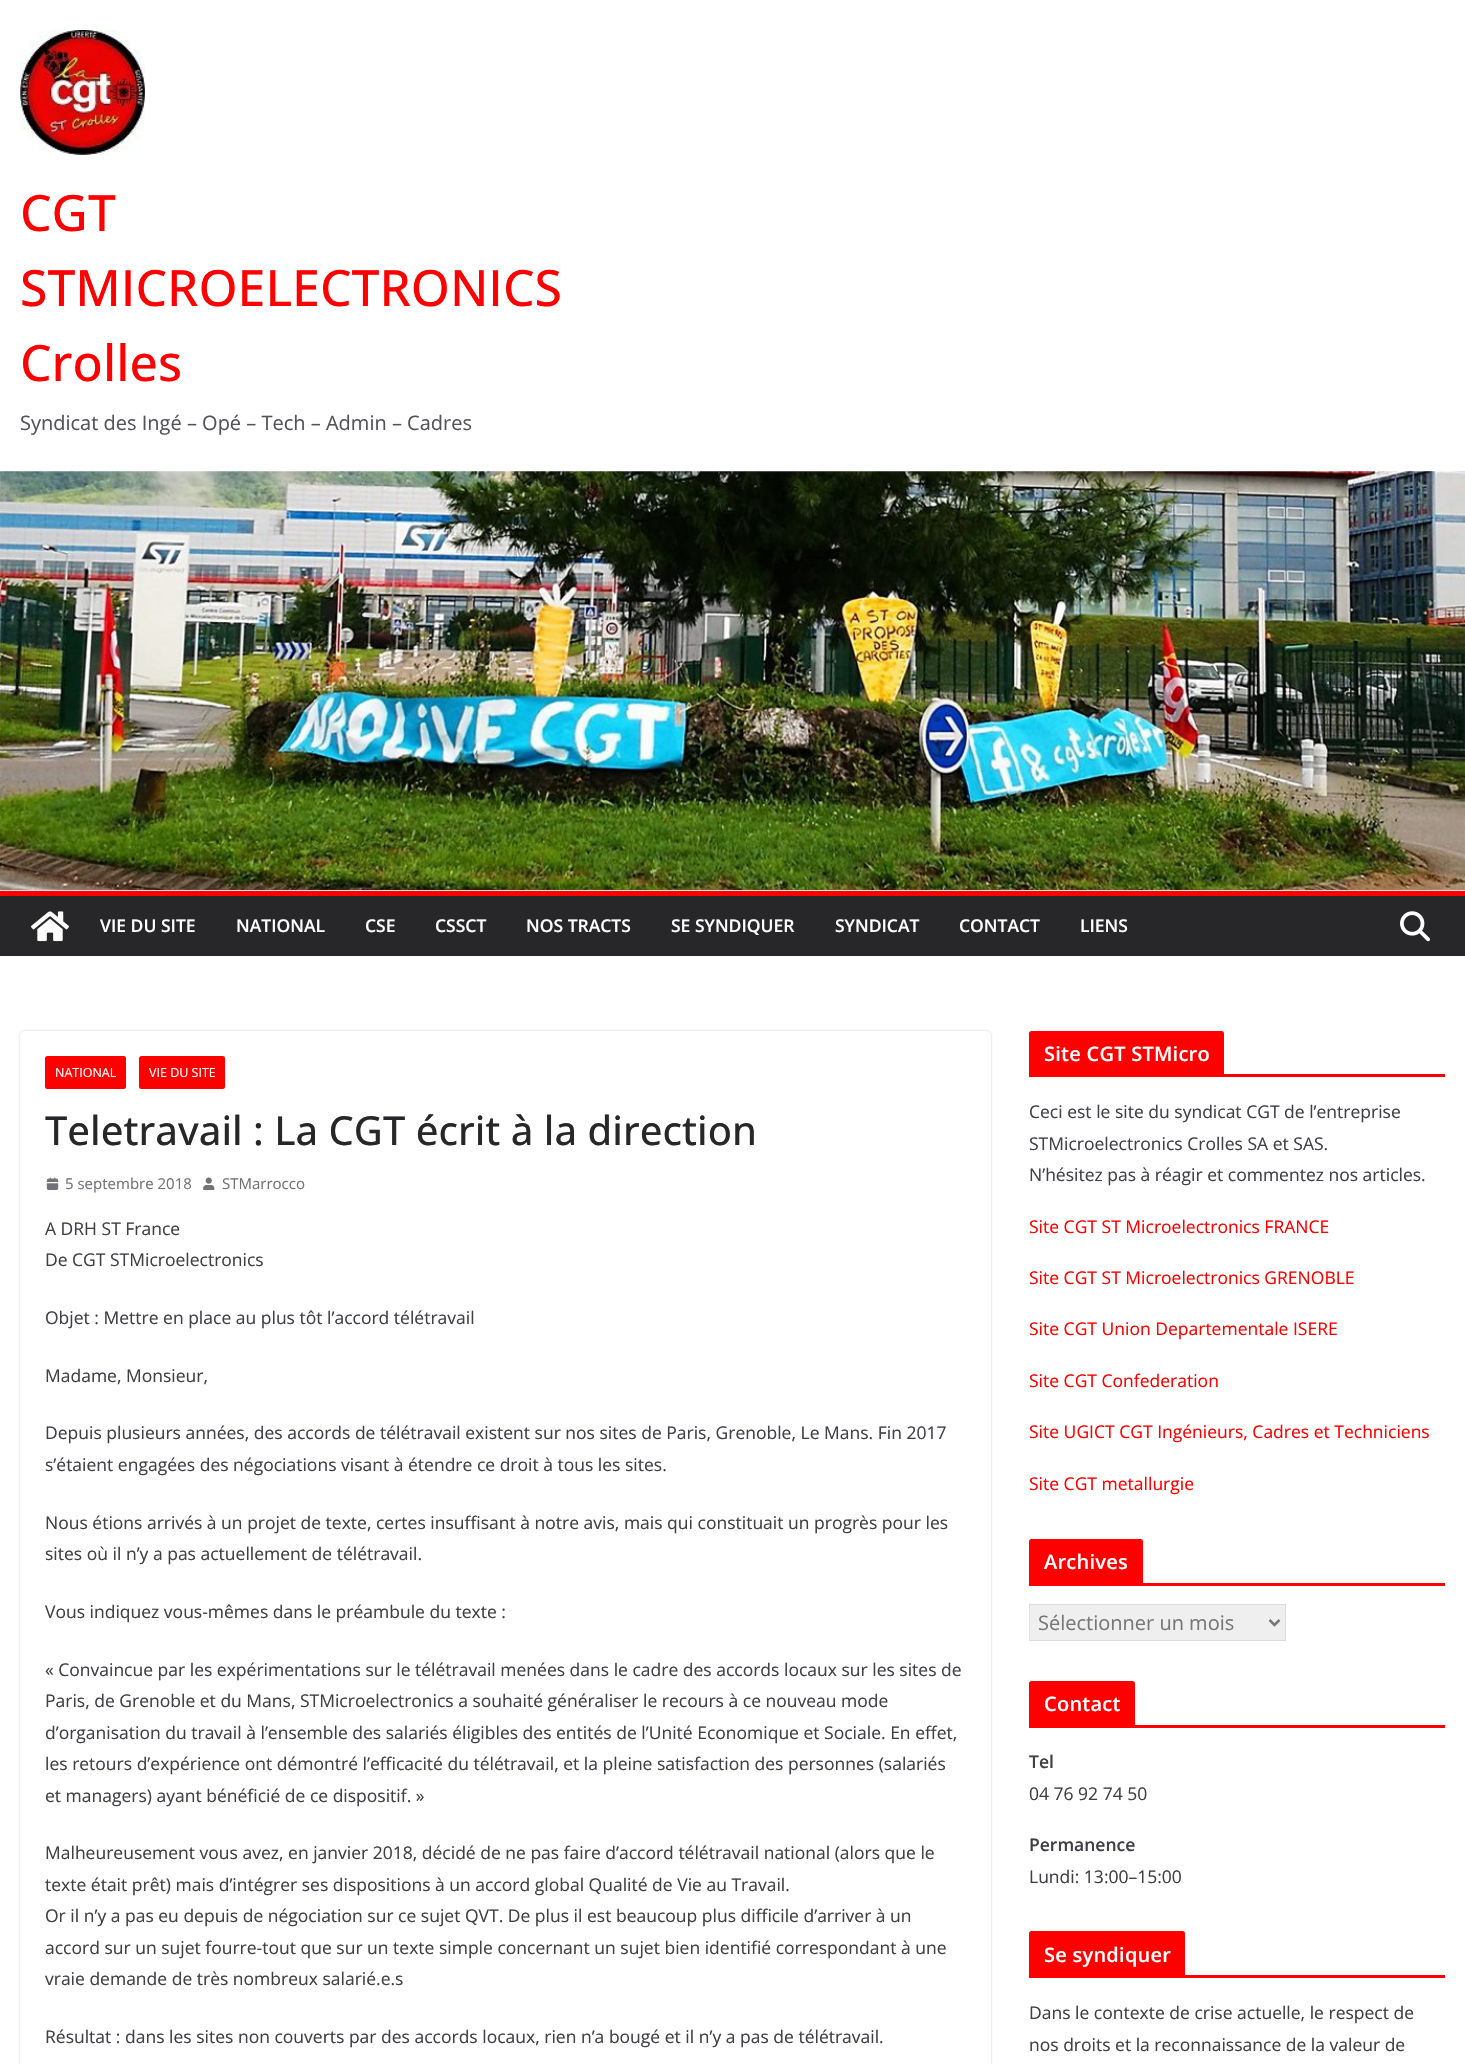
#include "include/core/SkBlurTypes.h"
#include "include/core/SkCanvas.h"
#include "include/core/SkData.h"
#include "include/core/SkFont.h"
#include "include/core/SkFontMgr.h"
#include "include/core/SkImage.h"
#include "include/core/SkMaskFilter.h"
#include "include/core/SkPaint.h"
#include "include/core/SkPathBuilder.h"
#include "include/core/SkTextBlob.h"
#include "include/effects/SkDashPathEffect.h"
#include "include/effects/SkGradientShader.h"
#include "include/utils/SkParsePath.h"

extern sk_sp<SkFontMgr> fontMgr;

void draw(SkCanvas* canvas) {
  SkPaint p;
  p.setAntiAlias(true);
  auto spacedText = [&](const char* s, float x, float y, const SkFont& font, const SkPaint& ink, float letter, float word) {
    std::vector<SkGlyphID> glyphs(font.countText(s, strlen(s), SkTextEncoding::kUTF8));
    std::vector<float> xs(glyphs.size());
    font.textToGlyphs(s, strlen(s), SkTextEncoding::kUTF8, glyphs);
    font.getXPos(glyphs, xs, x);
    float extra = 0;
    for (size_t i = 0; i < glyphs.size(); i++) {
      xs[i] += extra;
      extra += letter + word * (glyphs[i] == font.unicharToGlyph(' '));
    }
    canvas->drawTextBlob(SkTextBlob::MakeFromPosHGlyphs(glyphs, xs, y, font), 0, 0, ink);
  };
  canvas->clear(SK_ColorWHITE);
  canvas->drawImageRect(SkImages::DeferredFromEncodedData(SkData::MakeFromFileName("images/1.png")), SkRect::MakeLTRB(20, 30, 145, 155), SkSamplingOptions());
  canvas->drawImageRect(SkImages::DeferredFromEncodedData(SkData::MakeFromFileName("images/2.png")), SkRect::MakeLTRB(0, 471, 1465, 890), SkSamplingOptions());
  p.setColor(SkColorSetRGB(228, 228, 231));
  canvas->drawRect(SkRect::MakeLTRB(0, 890, 1465, 891), p);
  p.setColor(SkColorSetRGB(39, 39, 42));
  canvas->drawRect(SkRect::MakeLTRB(0, 896, 1465, 956), p);
  p.setColor(SkColorSetRGB(255, 0, 0));
  canvas->drawRect(SkRect::MakeLTRB(0, 891, 1465, 896), p);
  canvas->drawImageRect(SkImages::DeferredFromEncodedData(SkData::MakeFromFileName("images/3.png")), SkRect::MakeLTRB(31, 911, 69, 942), SkSamplingOptions());
  canvas->drawImageRect(SkImages::DeferredFromEncodedData(SkData::MakeFromFileName("images/4.png")), SkRect::MakeLTRB(1400, 911, 1430, 942), SkSamplingOptions());
  canvas->save();
  canvas->clipPath(SkPathBuilder(SkPathFillType::kEvenOdd).moveTo(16, 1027).lineTo(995, 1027).lineTo(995, 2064).lineTo(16, 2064).close().moveTo(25, 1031).lineTo(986, 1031).cubicTo(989, 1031, 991, 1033, 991, 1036).lineTo(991, 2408).cubicTo(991, 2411, 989, 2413, 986, 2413).lineTo(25, 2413).cubicTo(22, 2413, 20, 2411, 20, 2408).lineTo(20, 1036).cubicTo(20, 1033, 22, 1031, 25, 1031).close().detach(), true);
  p.setColor(SkColorSetARGB(61, 0, 0, 0));
  p.setMaskFilter(SkMaskFilter::MakeBlur(kNormal_SkBlurStyle, 1));
  canvas->drawRoundRect(SkRect::MakeLTRB(20, 1031, 991, 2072), 5, 5, p);
  p.setMaskFilter(nullptr);
  canvas->restore();
  p.setColor(SkColorSetRGB(255, 0, 0));
  canvas->drawRoundRect(SkRect::MakeLTRB(45, 1056, 126, 1089), 2.5f, 2.5f, p);
  canvas->drawRoundRect(SkRect::MakeLTRB(139, 1056, 225, 1089), 2.5f, 2.5f, p);
  canvas->drawImageRect(SkImages::DeferredFromEncodedData(SkData::MakeFromFileName("images/5.png")), SkRect::MakeLTRB(46, 1177, 59, 1190), SkSamplingOptions());
  canvas->drawImageRect(SkImages::DeferredFromEncodedData(SkData::MakeFromFileName("images/6.png")), SkRect::MakeLTRB(203, 1177, 215, 1190), SkSamplingOptions());
  canvas->drawRect(SkRect::MakeLTRB(1029, 1074, 1445, 1077), p);
  canvas->drawPath(SkPathBuilder().moveTo(1031.5f, 1031).lineTo(1221.5f, 1031).cubicTo(1223, 1031, 1224, 1032, 1224, 1033.5f).lineTo(1224, 1074).lineTo(1029, 1074).lineTo(1029, 1033.5f).cubicTo(1029, 1032, 1030, 1031, 1031.5f, 1031).close().detach(), p);
  canvas->drawRect(SkRect::MakeLTRB(1029, 1583, 1445, 1586), p);
  canvas->drawPath(SkPathBuilder().moveTo(1031.5f, 1539).lineTo(1140.5f, 1539).cubicTo(1142, 1539, 1143, 1540, 1143, 1541.5f).lineTo(1143, 1583).lineTo(1029, 1583).lineTo(1029, 1541.5f).cubicTo(1029, 1540, 1030, 1539, 1031.5f, 1539).close().detach(), p);
  p.setColor(SkColorSetRGB(239, 239, 239));
  canvas->drawRect(SkRect::MakeLTRB(1029.5f, 1604.5f, 1285.5f, 1640.5f), p);
  p.setStyle(SkPaint::kStroke_Style);
  p.setStrokeWidth(1);
  p.setColor(SkColorSetRGB(221, 221, 221));
  canvas->drawRect(SkRect::MakeLTRB(1029.5f, 1604.5f, 1285.5f, 1640.5f), p);
  p.setStrokeWidth(2.5f);
  p.setColor(SkColorSetRGB(119, 119, 119));
  canvas->drawPath(SkPathBuilder().moveTo(1269.5f, 1620).lineTo(1274.5f, 1625).lineTo(1279.5f, 1620).detach(), p);
  p.setStyle(SkPaint::kFill_Style);
  p.setColor(SkColorSetRGB(255, 0, 0));
  canvas->drawRect(SkRect::MakeLTRB(1029, 1725, 1445, 1728), p);
  canvas->drawPath(SkPathBuilder().moveTo(1031.5f, 1681).lineTo(1132.5f, 1681).cubicTo(1134, 1681, 1135, 1682, 1135, 1683.5f).lineTo(1135, 1725).lineTo(1029, 1725).lineTo(1029, 1683.5f).cubicTo(1029, 1682, 1030, 1681, 1031.5f, 1681).close().detach(), p);
  canvas->drawRect(SkRect::MakeLTRB(1029, 1975, 1445, 1978), p);
  canvas->drawPath(SkPathBuilder().moveTo(1031.5f, 1931).lineTo(1182.5f, 1931).cubicTo(1184, 1931, 1185, 1932, 1185, 1933.5f).lineTo(1185, 1975).lineTo(1029, 1975).lineTo(1029, 1933.5f).cubicTo(1029, 1932, 1030, 1931, 1031.5f, 1931).close().detach(), p);
  SkFont font1(fontMgr->matchFamilyStyle("Open Sans", SkFontStyle(500, SkFontStyle::kNormal_Width, SkFontStyle::kUpright_Slant)), 50);
  font1.setSubpixel(true);
  canvas->drawString("CGT", 20, 231, font1, p);
  canvas->drawString("STMICROELECTRONICS", 20, 306, font1, p);
  canvas->drawString("Crolles", 20, 381, font1, p);
  SkFont font2(fontMgr->matchFamilyStyle("Open Sans", SkFontStyle::Normal()), 20);
  font2.setSubpixel(true);
  p.setColor(SkColorSetRGB(82, 82, 91));
  canvas->drawString("Syndicat des Ingé – Opé – Tech – Admin – Cadres", 20, 430, font2, p);
  SkFont font3(fontMgr->matchFamilyStyle("Open Sans", SkFontStyle(600, SkFontStyle::kNormal_Width, SkFontStyle::kUpright_Slant)), 17.5f);
  font3.setSubpixel(true);
  p.setColor(SK_ColorWHITE);
  canvas->drawString("VIE DU SITE", 100, 932, font3, p);
  canvas->drawString("NATIONAL", 236, 932, font3, p);
  canvas->drawString("CSE", 365, 932, font3, p);
  canvas->drawString("CSSCT", 435, 932, font3, p);
  canvas->drawString("NOS TRACTS", 526, 932, font3, p);
  canvas->drawString("SE SYNDIQUER", 671, 932, font3, p);
  canvas->drawString("SYNDICAT", 835, 932, font3, p);
  canvas->drawString("CONTACT", 959, 932, font3, p);
  canvas->drawString("LIENS", 1080, 932, font3, p);
  SkFont font4(fontMgr->matchFamilyStyle("Open Sans", SkFontStyle::Normal()), 12.5f);
  font4.setSubpixel(true);
  canvas->drawString("NATIONAL", 55, 1077, font4, p);
  canvas->drawString("VIE DU SITE", 149, 1077, font4, p);
  SkFont font5(fontMgr->matchFamilyStyle("Open Sans", SkFontStyle(500, SkFontStyle::kNormal_Width, SkFontStyle::kUpright_Slant)), 40);
  font5.setSubpixel(true);
  p.setColor(SkColorSetRGB(39, 39, 42));
  canvas->drawString("Teletravail : La CGT écrit à la direction", 45, 1145, font5, p);
  SkFont font6(fontMgr->matchFamilyStyle("Open Sans", SkFontStyle::Normal()), 15);
  font6.setSubpixel(true);
  p.setColor(SkColorSetRGB(113, 113, 122));
  canvas->drawString("5 septembre 2018", 65, 1189, font6, p);
  canvas->drawString("STMarrocco", 222, 1189, font6, p);
  SkFont font7(fontMgr->matchFamilyStyle("Open Sans", SkFontStyle::Normal()), 17.5f);
  font7.setSubpixel(true);
  p.setColor(SkColorSetRGB(63, 63, 70));
  canvas->drawString("A DRH ST France", 45, 1235, font7, p);
  canvas->drawString("De CGT STMicroelectronics", 45, 1266, font7, p);
  canvas->drawString("Objet : Mettre en place au plus tôt l’accord télétravail", 45, 1324, font7, p);
  canvas->drawString("Madame, Monsieur,", 45, 1382, font7, p);
  canvas->drawString("Depuis plusieurs années, des accords de télétravail existent sur nos sites de Paris, Grenoble, Le Mans. Fin 2017", 45, 1439, font7, p);
  canvas->drawString("s’étaient engagées des négociations visant à étendre ce droit à tous les sites.", 45, 1471, font7, p);
  canvas->drawString("Nous étions arrivés à un projet de texte, certes insuffisant à notre avis, mais qui constituait un progrès pour les", 45, 1529, font7, p);
  canvas->drawString("sites où il n’y a pas actuellement de télétravail.", 45, 1560, font7, p);
  canvas->drawString("Vous indiquez vous-mêmes dans le préambule du texte :", 45, 1618, font7, p);
  canvas->drawString("« Convaincue par les expérimentations sur le télétravail menées dans le cadre des accords locaux sur les sites de", 45, 1676, font7, p);
  canvas->drawString("Paris, de Grenoble et du Mans, STMicroelectronics a souhaité généraliser le recours à ce nouveau mode", 45, 1707, font7, p);
  canvas->drawString("d’organisation du travail à l’ensemble des salariés éligibles des entités de l’Unité Economique et Sociale. En effet,", 45, 1739, font7, p);
  canvas->drawString("les retours d’expérience ont démontré l’efficacité du télétravail, et la pleine satisfaction des personnes (salariés", 45, 1770, font7, p);
  canvas->drawString("et managers) ayant bénéficié de ce dispositif. »", 45, 1802, font7, p);
  canvas->drawString("Malheureusement vous avez, en janvier 2018, décidé de ne pas faire d’accord télétravail national (alors que le", 45, 1859, font7, p);
  canvas->drawString("texte était prêt) mais d’intégrer ses dispositions à un accord global Qualité de Vie au Travail.", 45, 1891, font7, p);
  canvas->drawString("Or il n’y a pas eu depuis de négociation sur ce sujet QVT. De plus il est beaucoup plus difficile d’arriver à un", 45, 1922, font7, p);
  canvas->drawString("accord sur un sujet fourre-tout que sur un texte simple concernant un sujet bien identifié correspondant à une", 45, 1954, font7, p);
  canvas->drawString("vraie demande de très nombreux salarié.e.s", 45, 1985, font7, p);
  canvas->drawString("Résultat : dans les sites non couverts par des accords locaux, rien n’a bougé et il n’y a pas de télétravail.", 45, 2043, font7, p);
  SkFont font8(fontMgr->matchFamilyStyle("Open Sans", SkFontStyle(600, SkFontStyle::kNormal_Width, SkFontStyle::kUpright_Slant)), 20);
  font8.setSubpixel(true);
  p.setColor(SK_ColorWHITE);
  spacedText("Site CGT STMicro", 1044, 1061, font8, p, 0.25f, 0);
  p.setColor(SkColorSetRGB(63, 63, 70));
  canvas->drawString("Ceci est le site du syndicat CGT de l’entreprise", 1029, 1118, font7, p);
  canvas->drawString("STMicroelectronics Crolles SA et SAS.", 1029, 1150, font7, p);
  canvas->drawString("N’hésitez pas à réagir et commentez nos articles.", 1029, 1181, font7, p);
  p.setColor(SkColorSetRGB(255, 0, 0));
  canvas->drawString("Site CGT ST Microelectronics FRANCE", 1029, 1233, font7, p);
  canvas->drawString("Site CGT ST Microelectronics GRENOBLE", 1029, 1284, font7, p);
  canvas->drawString("Site CGT Union Departementale ISERE", 1029, 1335, font7, p);
  canvas->drawString("Site CGT Confederation", 1029, 1387, font7, p);
  canvas->drawString("Site UGICT CGT Ingénieurs, Cadres et Techniciens", 1029, 1438, font7, p);
  canvas->drawString("Site CGT metallurgie", 1029, 1490, font7, p);
  p.setColor(SK_ColorWHITE);
  spacedText("Archives", 1044, 1569, font8, p, 0.25f, 0);
  p.setColor(SkColorSetRGB(119, 119, 119));
  canvas->drawString("Sélectionner un mois", 1038, 1630, font2, p);
  p.setColor(SK_ColorWHITE);
  spacedText("Contact", 1044, 1711, font8, p, 0.25f, 0);
  p.setColor(SkColorSetRGB(63, 63, 70));
  canvas->drawString("Tel", 1029, 1768, font3, p);
  canvas->drawString("04 76 92 74 50", 1029, 1800, font7, p);
  canvas->drawString("Permanence", 1029, 1851, font3, p);
  canvas->drawString("Lundi: 13:00–15:00", 1029, 1883, font7, p);
  p.setColor(SK_ColorWHITE);
  spacedText("Se syndiquer", 1044, 1962, font8, p, 0.25f, 0);
  p.setColor(SkColorSetRGB(63, 63, 70));
  canvas->drawString("Dans le contexte de crise actuelle, le respect de", 1029, 2019, font7, p);
  canvas->drawString("nos droits et la reconnaissance de la valeur de", 1029, 2051, font7, p);
}
